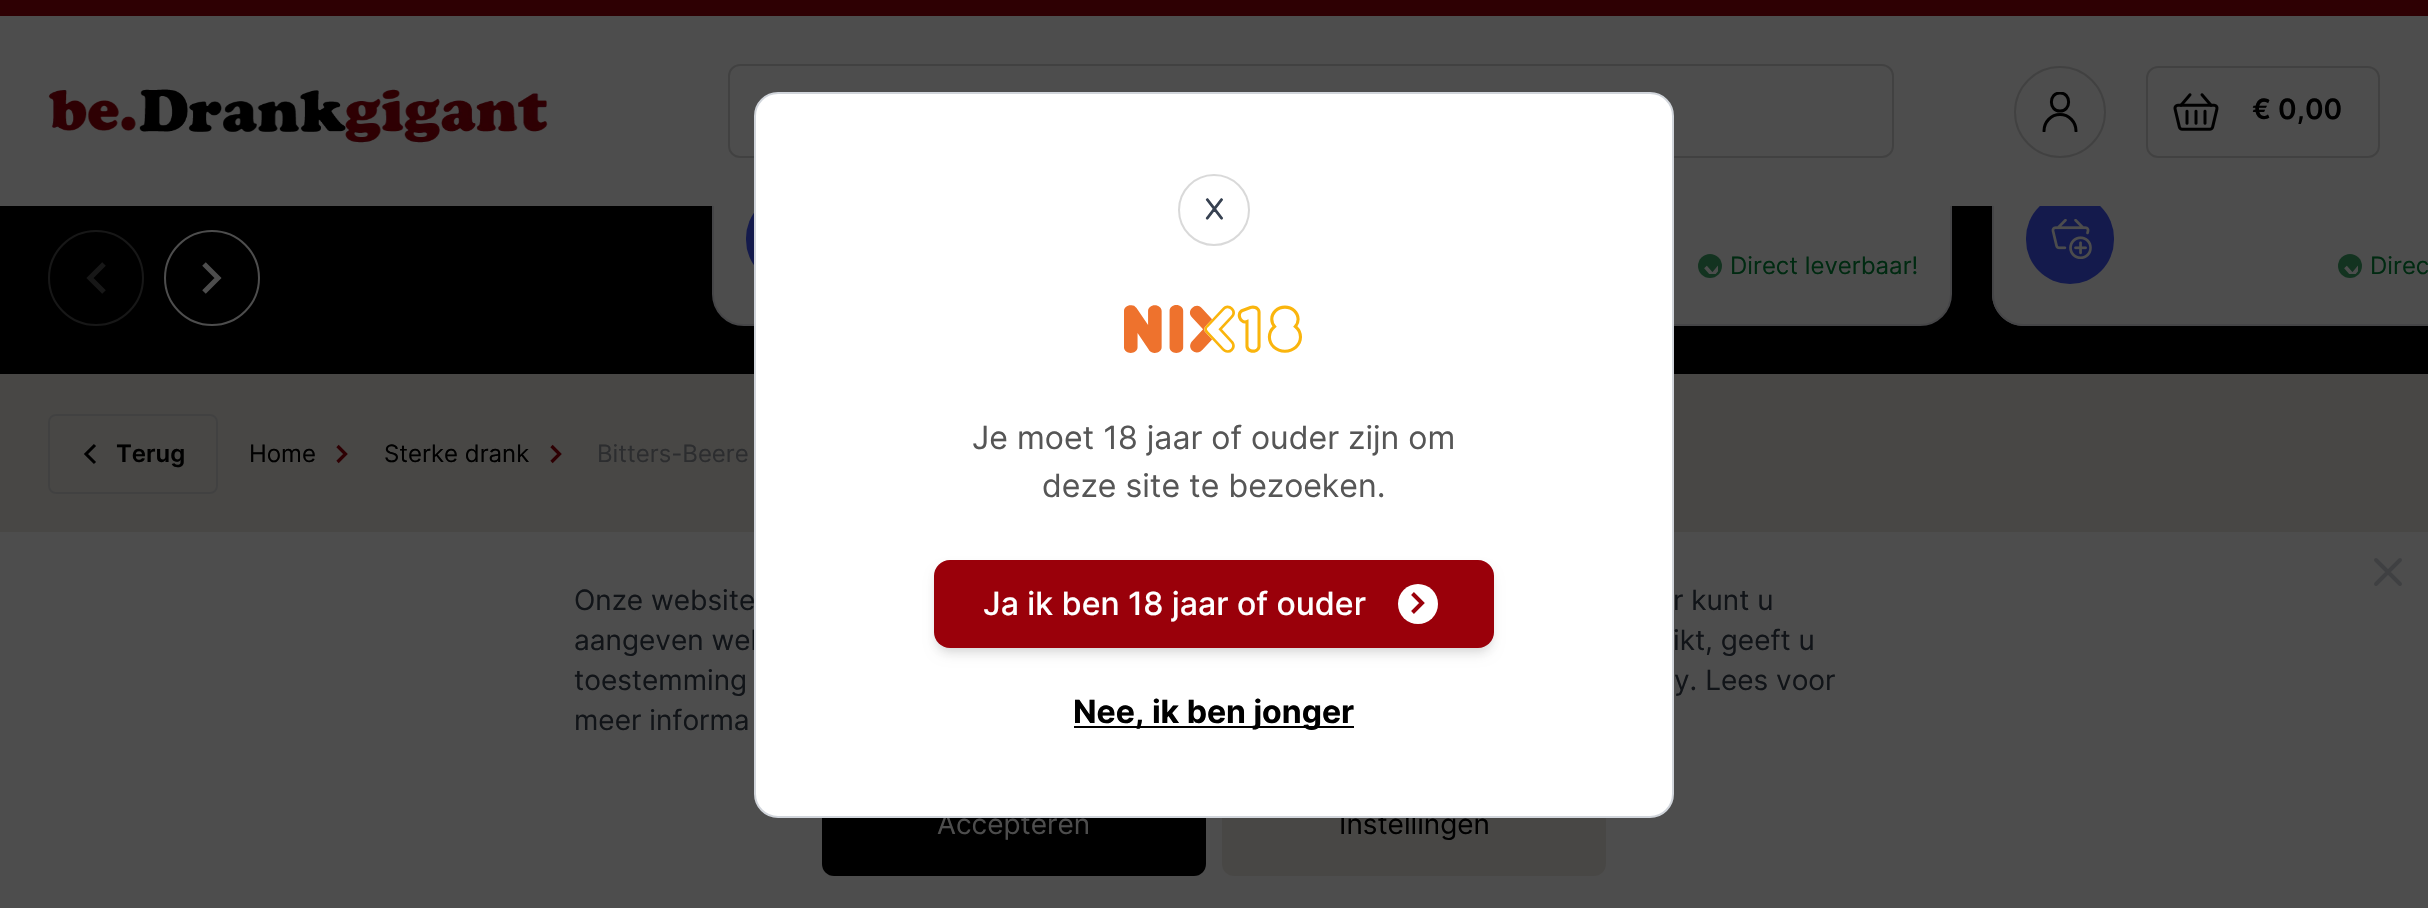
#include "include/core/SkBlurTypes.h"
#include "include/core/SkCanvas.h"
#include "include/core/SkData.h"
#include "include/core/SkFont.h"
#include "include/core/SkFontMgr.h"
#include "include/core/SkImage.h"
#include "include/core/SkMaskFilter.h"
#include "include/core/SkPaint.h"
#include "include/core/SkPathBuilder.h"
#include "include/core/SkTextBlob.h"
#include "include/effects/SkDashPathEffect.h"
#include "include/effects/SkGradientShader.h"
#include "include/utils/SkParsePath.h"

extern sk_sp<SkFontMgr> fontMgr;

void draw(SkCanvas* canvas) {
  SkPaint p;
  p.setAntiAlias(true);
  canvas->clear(SkColorSetRGB(72, 71, 69));
  p.setColor(SK_ColorBLACK);
  canvas->drawRect(SkRect::MakeLTRB(0, 206, 2428, 374), p);
  p.setColor(SkColorSetRGB(77, 77, 77));
  canvas->drawRoundRect(SkRect::MakeLTRB(713, -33, 1311, 325), 31, 31, p);
  p.setStyle(SkPaint::kStroke_Style);
  p.setStrokeWidth(2);
  p.setColor(SkColorSetRGB(69, 69, 71));
  canvas->drawRoundRect(SkRect::MakeLTRB(713, -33, 1311, 325), 31, 31, p);
  p.setStyle(SkPaint::kFill_Style);
  p.setColor(SkColorSetRGB(20, 26, 76));
  canvas->drawRoundRect(SkRect::MakeLTRB(746, 194, 834, 284), 44, 44, p);
  p.setColor(SkColorSetRGB(77, 77, 77));
  canvas->drawRoundRect(SkRect::MakeLTRB(1353, -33, 1951, 325), 31, 31, p);
  p.setStyle(SkPaint::kStroke_Style);
  p.setColor(SkColorSetRGB(69, 69, 71));
  canvas->drawRoundRect(SkRect::MakeLTRB(1353, -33, 1951, 325), 31, 31, p);
  p.setStyle(SkPaint::kFill_Style);
  p.setColor(SkColorSetRGB(77, 77, 77));
  canvas->drawPath(SkPathBuilder().moveTo(2024, -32).lineTo(2428, -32).lineTo(2428, 326).lineTo(2024, 326).cubicTo(2006.5f, 326, 1992, 311.5f, 1992, 294).lineTo(1992, 0).cubicTo(1992, -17.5f, 2006.5f, -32, 2024, -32).close().detach(), p);
  p.setStyle(SkPaint::kStroke_Style);
  p.setColor(SkColorSetRGB(69, 69, 71));
  canvas->drawRoundRect(SkRect::MakeLTRB(1993, -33, 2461, 325), 31, 31, p);
  p.setStyle(SkPaint::kFill_Style);
  p.setColor(SkColorSetRGB(20, 26, 76));
  canvas->drawRoundRect(SkRect::MakeLTRB(2026, 194, 2114, 284), 44, 44, p);
  p.setColor(SkColorSetRGB(77, 77, 77));
  canvas->drawRect(SkRect::MakeLTRB(0, 16, 2100, 206), p);
  p.setColor(SkColorSetRGB(46, 0, 3));
  canvas->drawRect(SkRect::MakeLTRB(0, 0, 2428, 16), p);
  canvas->drawImageRect(SkImages::DeferredFromEncodedData(SkData::MakeFromFileName("images/1.png")), SkRect::MakeLTRB(48, 89, 548, 143), SkSamplingOptions());
  p.setStyle(SkPaint::kStroke_Style);
  p.setColor(SkColorSetRGB(65, 65, 65));
  canvas->drawRoundRect(SkRect::MakeLTRB(729, 65, 1893, 157), 11, 11, p);
  canvas->drawCircle(2060, 112, 45, p);
  canvas->save();
  canvas->clipRect(SkRect::MakeLTRB(2040, 92, 2080, 132));
  p.setStrokeWidth(3);
  p.setStrokeCap(SkPaint::kRound_Cap);
  p.setStrokeJoin(SkPaint::kRound_Join);
  p.setColor(SK_ColorBLACK);
  canvas->drawPath(SkPathBuilder().moveTo(2060, 111).cubicTo(2071.5f, 111, 2071.5f, 93, 2060, 93).cubicTo(2048.5f, 93, 2048.5f, 111, 2060, 111).close().moveTo(2044, 131).cubicTo(2044, 122, 2051, 114.5f, 2060, 114.5f).cubicTo(2069, 114.5f, 2076, 122, 2076, 131).detach(), p);
  canvas->restore();
  p.setStrokeWidth(2);
  p.setStrokeCap(SkPaint::kButt_Cap);
  p.setStrokeJoin(SkPaint::kMiter_Join);
  p.setColor(SkColorSetRGB(65, 65, 65));
  canvas->drawRoundRect(SkRect::MakeLTRB(2147, 67, 2379, 157), 11, 11, p);
  canvas->drawImageRect(SkImages::DeferredFromEncodedData(SkData::MakeFromFileName("images/2.png")), SkRect::MakeLTRB(2173, 93, 2219, 131), SkSamplingOptions());
  p.setColor(SkColorSetRGB(23, 23, 23));
  canvas->drawCircle(96, 278, 47, p);
  p.setStrokeWidth(5);
  canvas->drawPath(SkPathBuilder().moveTo(104, 264).lineTo(90, 278).lineTo(104, 292).detach(), p);
  p.setStrokeWidth(2);
  p.setColor(SkColorSetRGB(77, 77, 77));
  canvas->drawCircle(212, 278, 47, p);
  p.setStrokeWidth(5);
  canvas->drawPath(SkPathBuilder().moveTo(204, 292).lineTo(218, 278).lineTo(204, 264).detach(), p);
  p.setStyle(SkPaint::kFill_Style);
  p.setColor(SkColorSetRGB(19, 51, 32));
  canvas->drawCircle(1710, 266, 12, p);
  canvas->save();
  canvas->clipRect(SkRect::MakeLTRB(1702, 258, 1718, 274));
  p.setStyle(SkPaint::kStroke_Style);
  p.setStrokeWidth(3.6f);
  p.setColor(SkColorSetRGB(77, 77, 77));
  canvas->drawPath(SkPathBuilder().moveTo(1705.5f, 267).lineTo(1712.5f, 275).lineTo(1722.5f, 263).detach(), p);
  canvas->restore();
  canvas->drawImageRect(SkImages::DeferredFromEncodedData(SkData::MakeFromFileName("images/4.png")), SkRect::MakeLTRB(2051, 219, 2092, 259), SkSamplingOptions());
  p.setStyle(SkPaint::kFill_Style);
  p.setColor(SkColorSetRGB(19, 51, 32));
  canvas->drawCircle(2350, 266, 12, p);
  canvas->save();
  canvas->clipRect(SkRect::MakeLTRB(2342, 258, 2358, 274));
  p.setStyle(SkPaint::kStroke_Style);
  p.setColor(SkColorSetRGB(77, 77, 77));
  canvas->drawPath(SkPathBuilder().moveTo(2345.5f, 267).lineTo(2352.5f, 275).lineTo(2362.5f, 263).detach(), p);
  canvas->restore();
  p.setStrokeWidth(2);
  p.setColor(SkColorSetRGB(65, 65, 65));
  canvas->drawRoundRect(SkRect::MakeLTRB(49, 415, 217, 493), 7, 7, p);
  p.setStrokeWidth(3.1f);
  p.setColor(SK_ColorBLACK);
  canvas->drawPath(SkPathBuilder().moveTo(95, 445).lineTo(86, 454).lineTo(95, 463).detach(), p);
  p.setStrokeWidth(3.3f);
  p.setColor(SkColorSetRGB(46, 0, 3));
  canvas->drawPath(SkPathBuilder().moveTo(337.5f, 446).lineTo(345.5f, 454).lineTo(337.5f, 462).detach(), p);
  canvas->drawPath(SkPathBuilder().moveTo(551.5f, 446).lineTo(559.5f, 454).lineTo(551.5f, 462).detach(), p);
  p.setStyle(SkPaint::kFill_Style);
  p.setColor(SkColorSetRGB(77, 77, 77));
  canvas->drawRect(SkRect::MakeLTRB(0, 532, 2428, 908), p);
  p.setStyle(SkPaint::kStroke_Style);
  p.setStrokeWidth(4);
  p.setStrokeCap(SkPaint::kRound_Cap);
  p.setStrokeJoin(SkPaint::kRound_Join);
  p.setColor(SkColorSetRGB(63, 64, 66));
  canvas->drawPath(SkPathBuilder().moveTo(2376, 584).lineTo(2400, 560).moveTo(2376, 560).lineTo(2400, 584).detach(), p);
  p.setStyle(SkPaint::kFill_Style);
  p.setColor(SK_ColorBLACK);
  canvas->drawRoundRect(SkRect::MakeLTRB(822, 772, 1206, 876), 12, 12, p);
  p.setColor(SkColorSetRGB(72, 71, 69));
  canvas->drawRoundRect(SkRect::MakeLTRB(1222, 772, 1606, 876), 12, 12, p);
  SkFont font1(fontMgr->matchFamilyStyle("Inter", SkFontStyle(600, SkFontStyle::kNormal_Width, SkFontStyle::kUpright_Slant)), 28);
  font1.setSubpixel(true);
  p.setColor(SK_ColorBLACK);
  canvas->drawString("€ 0,00", 2252, 119, font1, p);
  SkFont font2(fontMgr->matchFamilyStyle("Inter", SkFontStyle::Normal()), 24);
  font2.setSubpixel(true);
  p.setColor(SkColorSetRGB(0, 42, 17));
  canvas->drawString("Direct leverbaar!", 1730, 274, font2, p);
  canvas->drawString("Direc", 2370, 274, font2, p);
  SkFont font3(fontMgr->matchFamilyStyle("Inter", SkFontStyle(600, SkFontStyle::kNormal_Width, SkFontStyle::kUpright_Slant)), 24);
  font3.setSubpixel(true);
  p.setColor(SK_ColorBLACK);
  canvas->drawString("Terug", 116, 462, font3, p);
  canvas->drawString("Home", 249, 462, font2, p);
  canvas->drawString("Sterke drank", 384, 462, font2, p);
  p.setColor(SkColorSetRGB(44, 45, 47));
  canvas->drawString("Bitters-Beere", 597, 462, font2, p);
  SkFont font4(fontMgr->matchFamilyStyle("Inter", SkFontStyle::Normal()), 28);
  font4.setSubpixel(true);
  p.setColor(SkColorSetRGB(17, 20, 24));
  canvas->drawString("Onze website", 574, 610, font4, p);
  canvas->drawString("r kunt u", 1673, 610, font4, p);
  canvas->drawString("aangeven wel", 574, 650, font4, p);
  canvas->drawString("ikt, geeft u", 1673, 650, font4, p);
  canvas->drawString("toestemming", 574, 690, font4, p);
  canvas->drawString("y. Lees voor", 1674, 690, font4, p);
  canvas->drawString("meer informa", 574, 730, font4, p);
  p.setColor(SkColorSetRGB(77, 77, 77));
  canvas->drawString("Accepteren", 937, 834, font4, p);
  p.setColor(SK_ColorBLACK);
  canvas->drawString("Instellingen", 1339, 834, font4, p);
  p.setColor(SK_ColorWHITE);
  canvas->drawRoundRect(SkRect::MakeLTRB(755, 93, 1673, 817), 23, 23, p);
  p.setStyle(SkPaint::kStroke_Style);
  p.setStrokeWidth(2);
  p.setStrokeCap(SkPaint::kButt_Cap);
  p.setStrokeJoin(SkPaint::kMiter_Join);
  p.setColor(SkColorSetRGB(209, 213, 219));
  canvas->drawRoundRect(SkRect::MakeLTRB(755, 93, 1673, 817), 23, 23, p);
  p.setStyle(SkPaint::kFill_Style);
  p.setColor(SkColorSetARGB(26, 0, 0, 0));
  p.setMaskFilter(SkMaskFilter::MakeBlur(kNormal_SkBlurStyle, 6));
  canvas->drawRoundRect(SkRect::MakeLTRB(936, 570, 1492, 654), 14, 14, p);
  p.setMaskFilter(nullptr);
  p.setMaskFilter(SkMaskFilter::MakeBlur(kNormal_SkBlurStyle, 4));
  canvas->drawRoundRect(SkRect::MakeLTRB(938, 568, 1490, 648), 12, 12, p);
  p.setMaskFilter(nullptr);
  p.setColor(SkColorSetRGB(154, 0, 10));
  canvas->drawRoundRect(SkRect::MakeLTRB(934, 560, 1494, 648), 16, 16, p);
  p.setColor(SK_ColorWHITE);
  canvas->drawCircle(1418, 604, 20, p);
  p.setStyle(SkPaint::kStroke_Style);
  p.setStrokeWidth(4);
  p.setColor(SkColorSetRGB(154, 0, 10));
  canvas->drawPath(SkPathBuilder().moveTo(1412.5f, 593.5f).lineTo(1422, 603).lineTo(1412.5f, 612.5f).detach(), p);
  SkFont font5(fontMgr->matchFamilyStyle("Inter", SkFontStyle(500, SkFontStyle::kNormal_Width, SkFontStyle::kUpright_Slant)), 32);
  font5.setSubpixel(true);
  p.setStyle(SkPaint::kFill_Style);
  p.setColor(SK_ColorWHITE);
  canvas->drawString("Ja ik ben 18 jaar of ouder", 983, 615, font5, p);
  canvas->drawImageRect(SkImages::DeferredFromEncodedData(SkData::MakeFromFileName("images/3.png")), SkRect::MakeLTRB(1124, 305, 1302, 353), SkSamplingOptions());
  p.setColor(SK_ColorBLACK);
  canvas->drawRect(SkRect::MakeLTRB(1074, 726, 1354, 728), p);
  SkFont font6(fontMgr->matchFamilyStyle("Inter", SkFontStyle::Bold()), 32);
  font6.setSubpixel(true);
  canvas->drawString("Nee, ik ben jonger", 1073, 723, font6, p);
  SkFont font7(fontMgr->matchFamilyStyle("Inter", SkFontStyle::Normal()), 32);
  font7.setSubpixel(true);
  p.setColor(SkColorSetRGB(86, 86, 86));
  canvas->drawString("deze site te bezoeken.", 1042, 497, font7, p);
  canvas->drawString("Je moet 18 jaar of ouder zijn om", 972, 449, font7, p);
  p.setStyle(SkPaint::kStroke_Style);
  p.setStrokeWidth(2);
  p.setColor(SkColorSetRGB(217, 217, 217));
  canvas->drawCircle(1214, 210, 35, p);
  SkFont font8(fontMgr->matchFamilyStyle("Fredoka", SkFontStyle::Normal()), 30);
  font8.setSubpixel(true);
  p.setStyle(SkPaint::kFill_Style);
  p.setColor(SkColorSetRGB(55, 65, 81));
  canvas->drawString("X", 1204, 219, font8, p);
}
